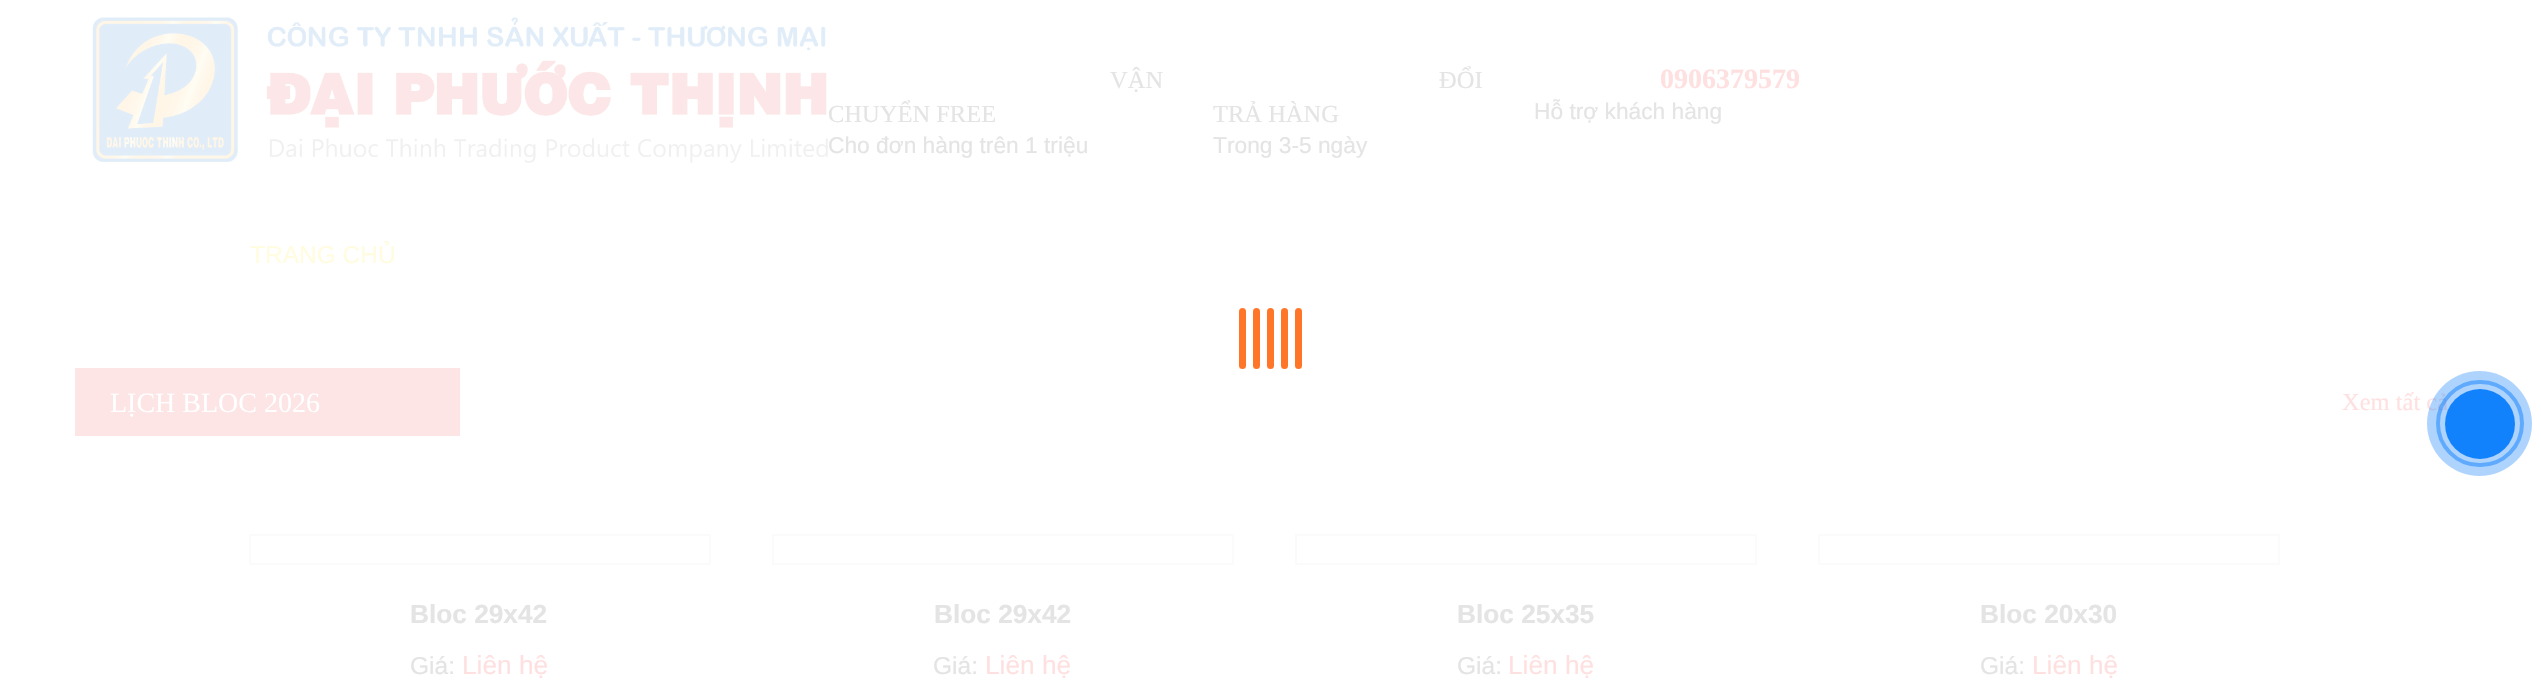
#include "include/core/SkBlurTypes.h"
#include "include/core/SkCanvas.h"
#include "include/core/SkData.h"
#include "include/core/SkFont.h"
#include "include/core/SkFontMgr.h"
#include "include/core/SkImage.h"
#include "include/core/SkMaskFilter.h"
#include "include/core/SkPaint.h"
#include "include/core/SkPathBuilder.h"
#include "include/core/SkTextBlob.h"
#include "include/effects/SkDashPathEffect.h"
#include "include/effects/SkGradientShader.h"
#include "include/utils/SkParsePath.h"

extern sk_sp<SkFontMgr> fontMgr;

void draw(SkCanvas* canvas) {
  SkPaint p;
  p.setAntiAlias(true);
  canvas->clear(SK_ColorWHITE);
  canvas->drawImageRect(SkImages::DeferredFromEncodedData(SkData::MakeFromFileName("images/1.png")), SkRect::MakeLTRB(92, 17, 828, 163), SkSamplingOptions());
  p.setColor(SkColorSetRGB(253, 228, 229));
  canvas->drawRect(SkRect::MakeLTRB(75, 368, 460, 436), p);
  p.setStyle(SkPaint::kStroke_Style);
  p.setStrokeWidth(2);
  p.setColor(SkColorSetRGB(251, 251, 251));
  canvas->drawRect(SkRect::MakeLTRB(250, 535, 710, 564), p);
  canvas->drawRect(SkRect::MakeLTRB(773, 535, 1233, 564), p);
  canvas->drawRect(SkRect::MakeLTRB(1296, 535, 1756, 564), p);
  canvas->drawRect(SkRect::MakeLTRB(1819, 535, 2279, 564), p);
  p.setStyle(SkPaint::kFill_Style);
  p.setColor(SkColorSetRGB(255, 118, 41));
  canvas->drawRoundRect(SkRect::MakeLTRB(1239, 308, 1246, 369), 3.5f, 3.5f, p);
  canvas->drawRoundRect(SkRect::MakeLTRB(1253, 308, 1260, 369), 3.5f, 3.5f, p);
  canvas->drawRoundRect(SkRect::MakeLTRB(1267, 308, 1274, 369), 3.5f, 3.5f, p);
  canvas->drawRoundRect(SkRect::MakeLTRB(1281, 308, 1288, 369), 3.5f, 3.5f, p);
  canvas->drawRoundRect(SkRect::MakeLTRB(1295, 308, 1302, 369), 3.5f, 3.5f, p);
  SkFont font1(fontMgr->matchFamilyStyle("Liberation Serif", SkFontStyle::Normal()), 24.5f);
  font1.setSubpixel(true);
  p.setColor(SkColorSetRGB(228, 228, 228));
  canvas->drawString("VẬN", 1110, 88, font1, p);
  canvas->drawString("CHUYỂN FREE", 828, 122, font1, p);
  SkFont font2(fontMgr->matchFamilyStyle("Liberation Sans", SkFontStyle::Normal()), 22.75f);
  font2.setSubpixel(true);
  canvas->drawString("Cho đơn hàng trên 1 triệu", 828, 153, font2, p);
  canvas->drawString("ĐỔI", 1439, 88, font1, p);
  canvas->drawString("TRẢ HÀNG", 1213, 122, font1, p);
  canvas->drawString("Trong 3-5 ngày", 1213, 153, font2, p);
  SkFont font3(fontMgr->matchFamilyStyle("Liberation Serif", SkFontStyle::Bold()), 28);
  font3.setSubpixel(true);
  p.setColor(SkColorSetRGB(255, 224, 224));
  canvas->drawString("0906379579", 1660, 88, font3, p);
  p.setColor(SkColorSetRGB(228, 228, 228));
  canvas->drawString("Hỗ trợ khách hàng", 1534, 119, font2, p);
  SkFont font4(fontMgr->matchFamilyStyle("Liberation Sans", SkFontStyle::Normal()), 24.5f);
  font4.setSubpixel(true);
  p.setColor(SkColorSetRGB(255, 252, 224));
  canvas->drawString("TRANG CHỦ", 250, 263, font4, p);
  SkFont font5(fontMgr->matchFamilyStyle("Liberation Serif", SkFontStyle::Normal()), 28);
  font5.setSubpixel(true);
  p.setColor(SK_ColorWHITE);
  canvas->drawString("LỊCH BLOC 2026", 110, 412, font5, p);
  p.setColor(SkColorSetRGB(255, 224, 224));
  canvas->drawString("Xem tất cả", 2342, 410, font1, p);
  SkFont font6(fontMgr->matchFamilyStyle("Liberation Sans", SkFontStyle::Bold()), 26.25f);
  font6.setSubpixel(true);
  p.setColor(SkColorSetRGB(228, 228, 228));
  canvas->drawString("Bloc 29x42", 410, 623, font6, p);
  canvas->drawString("Giá:", 410, 674, font4, p);
  SkFont font7(fontMgr->matchFamilyStyle("Liberation Sans", SkFontStyle::Normal()), 26.25f);
  font7.setSubpixel(true);
  p.setColor(SkColorSetRGB(255, 224, 224));
  canvas->drawString("Liên hệ", 462, 674, font7, p);
  p.setColor(SkColorSetRGB(228, 228, 228));
  canvas->drawString("Bloc 29x42", 934, 623, font6, p);
  canvas->drawString("Giá:", 933, 674, font4, p);
  p.setColor(SkColorSetRGB(255, 224, 224));
  canvas->drawString("Liên hệ", 985, 674, font7, p);
  p.setColor(SkColorSetRGB(228, 228, 228));
  canvas->drawString("Bloc 25x35", 1457, 623, font6, p);
  canvas->drawString("Giá:", 1457, 674, font4, p);
  p.setColor(SkColorSetRGB(255, 224, 224));
  canvas->drawString("Liên hệ", 1508, 674, font7, p);
  p.setColor(SkColorSetRGB(228, 228, 228));
  canvas->drawString("Bloc 20x30", 1980, 623, font6, p);
  canvas->drawString("Giá:", 1980, 674, font4, p);
  p.setColor(SkColorSetRGB(255, 224, 224));
  canvas->drawString("Liên hệ", 2032, 674, font7, p);
  p.setStyle(SkPaint::kStroke_Style);
  p.setStrokeWidth(4);
  p.setColor(SkColorSetARGB(128, 17, 130, 252));
  canvas->drawRoundRect(SkRect::MakeLTRB(2438, 382, 2522, 465), 41.5f, 41.5f, p);
  p.setStyle(SkPaint::kFill_Style);
  p.setColor(SkColorSetARGB(87, 17, 130, 252));
  canvas->drawCircle(2479.5f, 423.5f, 52.5f, p);
  p.setColor(SkColorSetRGB(17, 130, 252));
  canvas->drawCircle(2480, 424, 35, p);
}
